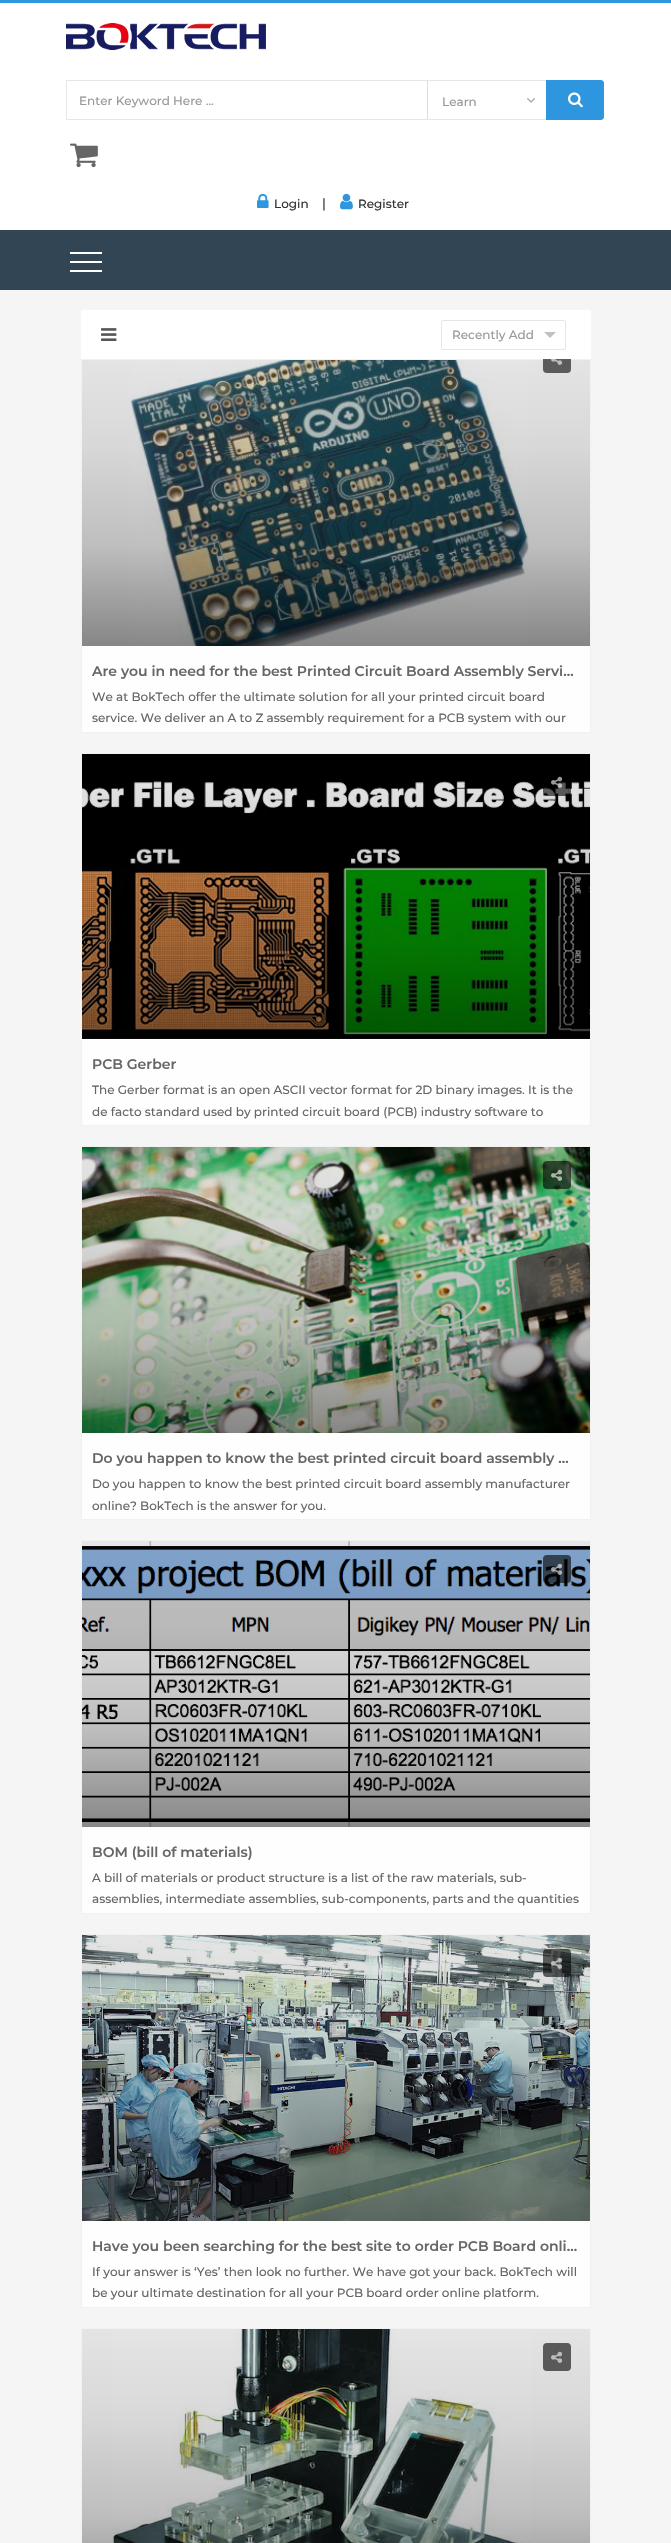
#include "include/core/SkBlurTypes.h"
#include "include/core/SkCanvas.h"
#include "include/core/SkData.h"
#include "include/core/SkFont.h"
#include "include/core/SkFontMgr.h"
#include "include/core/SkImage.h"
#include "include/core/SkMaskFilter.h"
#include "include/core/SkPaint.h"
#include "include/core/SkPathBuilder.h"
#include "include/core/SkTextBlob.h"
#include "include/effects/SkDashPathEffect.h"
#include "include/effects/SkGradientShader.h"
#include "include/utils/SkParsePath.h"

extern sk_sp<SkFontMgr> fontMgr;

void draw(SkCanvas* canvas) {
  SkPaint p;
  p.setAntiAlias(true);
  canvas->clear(SkColorSetRGB(245, 245, 245));
  p.setColor(SK_ColorWHITE);
  canvas->drawRect(SkRect::MakeLTRB(0, 3, 671, 230), p);
  p.setColor(SkColorSetRGB(45, 150, 222));
  canvas->drawRect(SkRect::MakeLTRB(0, 0, 671, 3), p);
  canvas->drawImageRect(SkImages::DeferredFromEncodedData(SkData::MakeFromFileName("images/1.png")), SkRect::MakeLTRB(66, 23, 266, 50), SkSamplingOptions());
  p.setColor(SkColorSetRGB(229, 230, 231));
  canvas->drawPath(SkPathBuilder().moveTo(67, 81).lineTo(427, 81).lineTo(428, 80).lineTo(66, 80).close().detach(), p);
  p.setColor(SkColorSetRGB(221, 221, 221));
  canvas->drawPath(SkPathBuilder().moveTo(428, 80).lineTo(427, 81).lineTo(427, 119).lineTo(428, 120).close().detach(), p);
  p.setColor(SkColorSetRGB(229, 230, 231));
  canvas->drawPath(SkPathBuilder().moveTo(428, 120).lineTo(427, 119).lineTo(67, 119).lineTo(66, 120).lineTo(67, 120).close().detach(), p);
  canvas->drawPath(SkPathBuilder().moveTo(67, 81).lineTo(66, 80).lineTo(66, 119).lineTo(66.5f, 119.5f).lineTo(67, 119).close().detach(), p);
  canvas->drawImageRect(SkImages::DeferredFromEncodedData(SkData::MakeFromFileName("images/2.png")), SkRect::MakeLTRB(527, 98, 535, 103), SkSamplingOptions());
  canvas->drawRect(SkRect::MakeLTRB(428, 80, 548, 81), p);
  canvas->drawRect(SkRect::MakeLTRB(428, 119, 548, 120), p);
  p.setColor(SkColorSetRGB(45, 150, 222));
  canvas->drawPath(SkPathBuilder().moveTo(546, 80).lineTo(601, 80).cubicTo(602.5f, 80, 604, 81.5f, 604, 83).lineTo(604, 117).cubicTo(604, 118.5f, 602.5f, 120, 601, 120).lineTo(546, 120).close().detach(), p);
  canvas->drawImageRect(SkImages::DeferredFromEncodedData(SkData::MakeFromFileName("images/3.png")), SkRect::MakeLTRB(568, 92, 583, 108), SkSamplingOptions());
  canvas->drawImageRect(SkImages::DeferredFromEncodedData(SkData::MakeFromFileName("images/4.png")), SkRect::MakeLTRB(70, 143, 98, 168), SkSamplingOptions());
  canvas->drawImageRect(SkImages::DeferredFromEncodedData(SkData::MakeFromFileName("images/5.png")), SkRect::MakeLTRB(257, 193, 269, 208), SkSamplingOptions());
  canvas->drawImageRect(SkImages::DeferredFromEncodedData(SkData::MakeFromFileName("images/6.png")), SkRect::MakeLTRB(340, 193, 353, 210), SkSamplingOptions());
  p.setColor(SkColorSetRGB(49, 69, 85));
  canvas->drawRect(SkRect::MakeLTRB(0, 230, 671, 290), p);
  p.setColor(SK_ColorWHITE);
  canvas->drawRect(SkRect::MakeLTRB(70, 252, 102, 254), p);
  canvas->drawRect(SkRect::MakeLTRB(70, 261, 102, 263), p);
  canvas->drawRect(SkRect::MakeLTRB(70, 270, 102, 272), p);
  p.setColor(SkColorSetRGB(254, 254, 254));
  canvas->drawRect(SkRect::MakeLTRB(81.5f, 359.5f, 590.5f, 732.5f), p);
  p.setStyle(SkPaint::kStroke_Style);
  p.setStrokeWidth(1);
  p.setColor(SkColorSetRGB(241, 241, 241));
  canvas->drawRect(SkRect::MakeLTRB(81.5f, 359.5f, 590.5f, 732.5f), p);
  canvas->drawImageRect(SkImages::DeferredFromEncodedData(SkData::MakeFromFileName("images/9.png")), SkRect::MakeLTRB(130, 360, 529, 646), SkSamplingOptions());
  p.setStyle(SkPaint::kFill_Style);
  {
    const SkColor colors[] = {SkColorSetARGB(26, 0, 0, 0), SkColorSetARGB(38, 0, 0, 0), SkColorSetARGB(64, 0, 0, 0), SkColorSetARGB(120, 0, 0, 0)};
    const float stops[] = {0, 0.3f, 0.65f, 1};
    const SkPoint ends[] = {{336, 360}, {336, 646}};
    p.setShader(SkGradientShader::MakeLinear(ends, colors, stops, 4, SkTileMode::kClamp));
    p.setAlpha(255);
  }
  canvas->drawRect(SkRect::MakeLTRB(82, 360, 590, 646), p);
  p.setShader(nullptr);
  p.setColor(SkColorSetARGB(153, 0, 0, 0));
  canvas->drawRoundRect(SkRect::MakeLTRB(543, 345, 571, 373), 4, 4, p);
  p.setColor(SK_ColorWHITE);
  canvas->drawRect(SkRect::MakeLTRB(81, 310, 591, 359), p);
  canvas->drawImageRect(SkImages::DeferredFromEncodedData(SkData::MakeFromFileName("images/7.png")), SkRect::MakeLTRB(101, 328, 117, 341), SkSamplingOptions());
  p.setStyle(SkPaint::kStroke_Style);
  p.setColor(SkColorSetRGB(230, 230, 230));
  canvas->drawRoundRect(SkRect::MakeLTRB(441.5f, 320.5f, 565.5f, 349.5f), 1.5f, 1.5f, p);
  p.setStyle(SkPaint::kFill_Style);
  p.setColor(SkColorSetRGB(194, 194, 194));
  canvas->drawPath(SkPathBuilder().moveTo(544, 332).lineTo(556, 332).lineTo(550, 338).close().detach(), p);
  canvas->drawImageRect(SkImages::DeferredFromEncodedData(SkData::MakeFromFileName("images/8.png")), SkRect::MakeLTRB(551, 359, 563, 365), SkSamplingOptions());
  p.setColor(SkColorSetRGB(254, 254, 254));
  canvas->drawRect(SkRect::MakeLTRB(82, 1039, 590, 1125), p);
  p.setStyle(SkPaint::kStroke_Style);
  p.setColor(SkColorSetRGB(241, 241, 241));
  canvas->drawRect(SkRect::MakeLTRB(81.5f, 753.5f, 590.5f, 1125.5f), p);
  canvas->drawImageRect(SkImages::DeferredFromEncodedData(SkData::MakeFromFileName("images/10.png")), SkRect::MakeLTRB(82, 754, 590, 1039), SkSamplingOptions());
  p.setStyle(SkPaint::kFill_Style);
  p.setColor(SkColorSetARGB(153, 0, 0, 0));
  canvas->drawRoundRect(SkRect::MakeLTRB(543, 768, 571, 796), 4, 4, p);
  canvas->drawImageRect(SkImages::DeferredFromEncodedData(SkData::MakeFromFileName("images/11.png")), SkRect::MakeLTRB(551, 776, 563, 788), SkSamplingOptions());
  p.setColor(SkColorSetRGB(254, 254, 254));
  canvas->drawRect(SkRect::MakeLTRB(82, 1433, 590, 1519), p);
  p.setStyle(SkPaint::kStroke_Style);
  p.setColor(SkColorSetRGB(241, 241, 241));
  canvas->drawRect(SkRect::MakeLTRB(81.5f, 1146.5f, 590.5f, 1519.5f), p);
  canvas->drawImageRect(SkImages::DeferredFromEncodedData(SkData::MakeFromFileName("images/12.png")), SkRect::MakeLTRB(82, 1147, 590, 1433), SkSamplingOptions());
  p.setStyle(SkPaint::kFill_Style);
  p.setColor(SkColorSetARGB(153, 0, 0, 0));
  canvas->drawRoundRect(SkRect::MakeLTRB(543, 1161, 571, 1189), 4, 4, p);
  canvas->drawImageRect(SkImages::DeferredFromEncodedData(SkData::MakeFromFileName("images/13.png")), SkRect::MakeLTRB(551, 1169, 563, 1181), SkSamplingOptions());
  p.setColor(SkColorSetRGB(254, 254, 254));
  canvas->drawRect(SkRect::MakeLTRB(82, 1827, 590, 1913), p);
  p.setStyle(SkPaint::kStroke_Style);
  p.setColor(SkColorSetRGB(241, 241, 241));
  canvas->drawRect(SkRect::MakeLTRB(81.5f, 1540.5f, 590.5f, 1913.5f), p);
  canvas->drawImageRect(SkImages::DeferredFromEncodedData(SkData::MakeFromFileName("images/14.png")), SkRect::MakeLTRB(82, 1541, 590, 1827), SkSamplingOptions());
  p.setStyle(SkPaint::kFill_Style);
  p.setColor(SkColorSetARGB(153, 0, 0, 0));
  canvas->drawRoundRect(SkRect::MakeLTRB(543, 1555, 571, 1583), 4, 4, p);
  canvas->drawImageRect(SkImages::DeferredFromEncodedData(SkData::MakeFromFileName("images/15.png")), SkRect::MakeLTRB(551, 1563, 563, 1575), SkSamplingOptions());
  p.setColor(SkColorSetRGB(254, 254, 254));
  canvas->drawRect(SkRect::MakeLTRB(82, 2221, 590, 2307), p);
  p.setStyle(SkPaint::kStroke_Style);
  p.setColor(SkColorSetRGB(241, 241, 241));
  canvas->drawRect(SkRect::MakeLTRB(81.5f, 1934.5f, 590.5f, 2307.5f), p);
  canvas->drawImageRect(SkImages::DeferredFromEncodedData(SkData::MakeFromFileName("images/16.png")), SkRect::MakeLTRB(82, 1935, 590, 2221), SkSamplingOptions());
  p.setStyle(SkPaint::kFill_Style);
  p.setColor(SkColorSetARGB(153, 0, 0, 0));
  canvas->drawRoundRect(SkRect::MakeLTRB(543, 1949, 571, 1977), 4, 4, p);
  canvas->drawImageRect(SkImages::DeferredFromEncodedData(SkData::MakeFromFileName("images/17.png")), SkRect::MakeLTRB(551, 1957, 563, 1969), SkSamplingOptions());
  p.setColor(SkColorSetRGB(254, 254, 254));
  canvas->drawRect(SkRect::MakeLTRB(81.5f, 2328.5f, 590.5f, 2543.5f), p);
  p.setStyle(SkPaint::kStroke_Style);
  p.setColor(SkColorSetRGB(241, 241, 241));
  canvas->drawRect(SkRect::MakeLTRB(81.5f, 2328.5f, 590.5f, 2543.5f), p);
  canvas->drawImageRect(SkImages::DeferredFromEncodedData(SkData::MakeFromFileName("images/18.png")), SkRect::MakeLTRB(112, 2329, 531, 2543), SkSamplingOptions());
  p.setStyle(SkPaint::kFill_Style);
  {
    const SkColor colors[] = {SkColorSetARGB(26, 0, 0, 0), SkColorSetARGB(38, 0, 0, 0), SkColorSetARGB(64, 0, 0, 0), SkColorSetARGB(120, 0, 0, 0)};
    const float stops[] = {0, 0.3f, 0.65f, 1};
    const SkPoint ends[] = {{336, 2329}, {336, 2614}};
    p.setShader(SkGradientShader::MakeLinear(ends, colors, stops, 4, SkTileMode::kClamp));
    p.setAlpha(255);
  }
  canvas->drawRect(SkRect::MakeLTRB(82, 2329, 590, 2543), p);
  p.setShader(nullptr);
  p.setColor(SkColorSetARGB(153, 0, 0, 0));
  canvas->drawRoundRect(SkRect::MakeLTRB(543, 2343, 571, 2371), 4, 4, p);
  canvas->drawImageRect(SkImages::DeferredFromEncodedData(SkData::MakeFromFileName("images/19.png")), SkRect::MakeLTRB(551, 2351, 563, 2363), SkSamplingOptions());
  SkFont font1(fontMgr->matchFamilyStyle("Montserrat", SkFontStyle(500, SkFontStyle::kNormal_Width, SkFontStyle::kUpright_Slant)), 12);
  font1.setSubpixel(true);
  p.setColor(SkColorSetRGB(153, 153, 153));
  canvas->drawString("Enter Keyword Here ...", 79, 105, font1, p);
  canvas->drawString("Learn", 442, 106, font1, p);
  p.setColor(SkColorSetRGB(51, 51, 51));
  canvas->drawString("Login", 274, 208, font1, p);
  SkFont font2(fontMgr->matchFamilyStyle("Montserrat", SkFontStyle(500, SkFontStyle::kNormal_Width, SkFontStyle::kUpright_Slant)), 13);
  font2.setSubpixel(true);
  p.setColor(SkColorSetRGB(56, 64, 71));
  canvas->drawString("|", 322, 208, font2, p);
  p.setColor(SkColorSetRGB(51, 51, 51));
  canvas->drawString("Register", 358, 208, font1, p);
  p.setColor(SkColorSetRGB(153, 153, 153));
  canvas->drawString("Recently Add", 452, 339, font1, p);
  SkFont font3(fontMgr->matchFamilyStyle("Montserrat", SkFontStyle(600, SkFontStyle::kNormal_Width, SkFontStyle::kUpright_Slant)), 14);
  font3.setSubpixel(true);
  p.setColor(SkColorSetRGB(102, 102, 102));
  canvas->drawString("Are you in need for the best Printed Circuit Board Assembly Servi…", 92, 676, font3, p);
  canvas->drawString("We at BokTech offer the ultimate solution for all your printed circuit board", 92, 701, font1, p);
  canvas->drawString("service. We deliver an A to Z assembly requirement for a PCB system with our", 92, 722, font1, p);
  canvas->drawString("PCB Gerber", 92, 1069, font3, p);
  canvas->drawString("The Gerber format is an open ASCII vector format for 2D binary images. It is the", 92, 1094, font1, p);
  canvas->drawString("de facto standard used by printed circuit board (PCB) industry software to", 92, 1116, font1, p);
  canvas->drawString("Do you happen to know the best printed circuit board assembly …", 92, 1463, font3, p);
  canvas->drawString("Do you happen to know the best printed circuit board assembly manufacturer", 92, 1488, font1, p);
  canvas->drawString("online? BokTech is the answer for you.", 92, 1510, font1, p);
  canvas->drawString("BOM (bill of materials)", 92, 1857, font3, p);
  canvas->drawString("A bill of materials or product structure is a list of the raw materials, sub-", 92, 1882, font1, p);
  canvas->drawString("assemblies, intermediate assemblies, sub-components, parts and the quantities", 92, 1903, font1, p);
  canvas->drawString("Have you been searching for the best site to order PCB Board onli…", 92, 2251, font3, p);
  canvas->drawString("If your answer is ‘Yes’ then look no further. We have got your back. BokTech will", 92, 2276, font1, p);
  canvas->drawString("be your ultimate destination for all your PCB board order online platform.", 92, 2297, font1, p);
}
